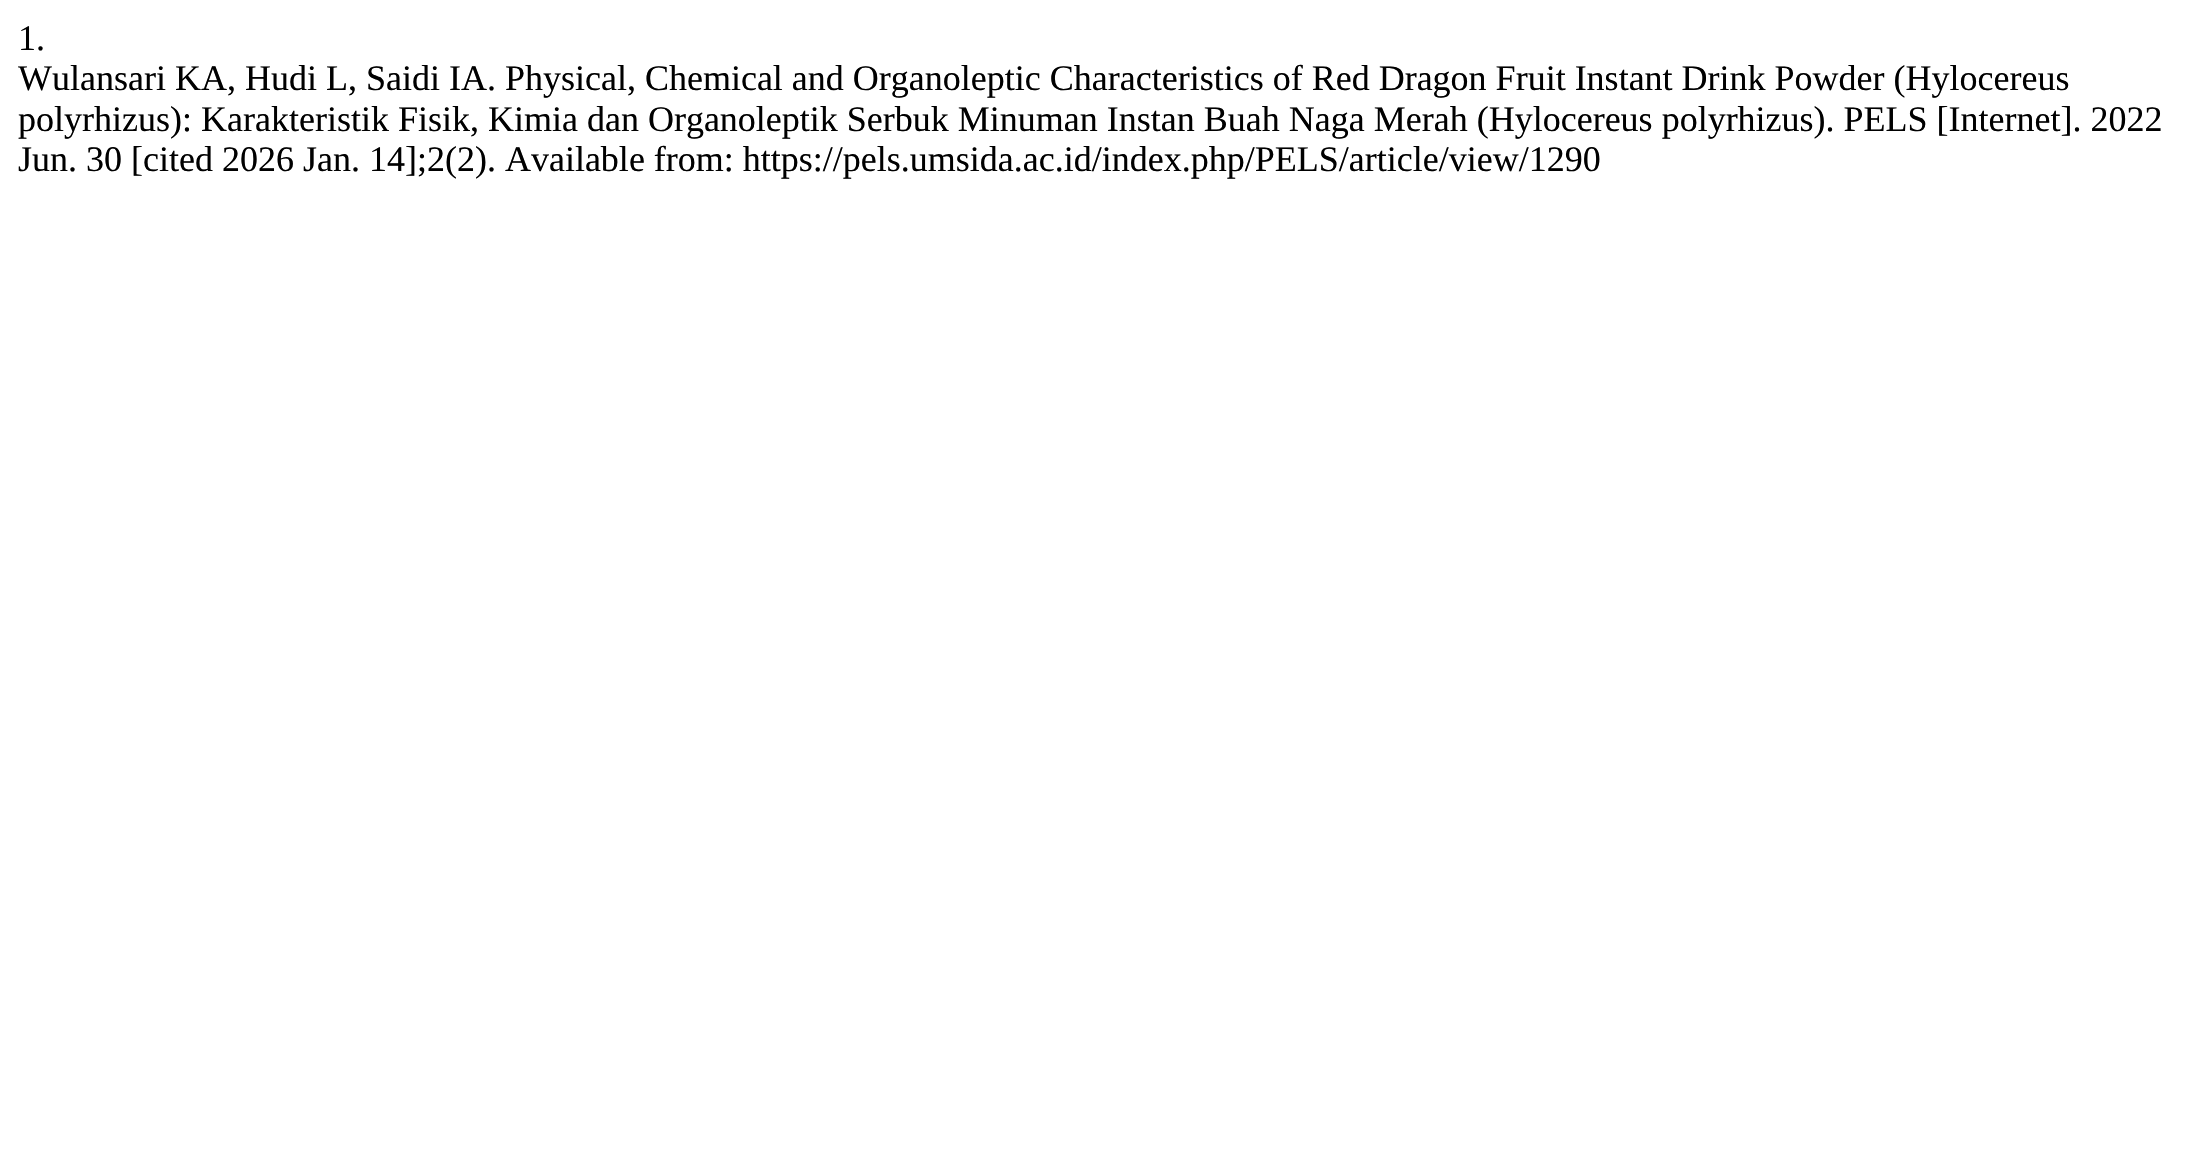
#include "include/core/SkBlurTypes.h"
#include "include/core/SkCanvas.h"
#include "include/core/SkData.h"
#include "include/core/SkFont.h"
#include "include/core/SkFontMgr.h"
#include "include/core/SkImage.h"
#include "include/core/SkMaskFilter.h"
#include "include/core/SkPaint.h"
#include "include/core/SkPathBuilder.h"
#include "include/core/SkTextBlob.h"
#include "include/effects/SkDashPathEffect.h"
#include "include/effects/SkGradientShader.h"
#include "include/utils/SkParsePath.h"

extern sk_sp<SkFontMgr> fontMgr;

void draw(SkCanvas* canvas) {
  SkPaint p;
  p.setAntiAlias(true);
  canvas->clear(SK_ColorWHITE);
  SkFont font1(fontMgr->matchFamilyStyle("Liberation Serif", SkFontStyle::Normal()), 36);
  font1.setSubpixel(true);
  p.setColor(SK_ColorBLACK);
  canvas->drawString("1.", 18, 50, font1, p);
  canvas->drawString("Wulansari KA, Hudi L, Saidi IA. Physical, Chemical and Organoleptic Characteristics of Red Dragon Fruit Instant Drink Powder (Hylocereus", 18, 90, font1, p);
  canvas->drawString("polyrhizus): Karakteristik Fisik, Kimia dan Organoleptik Serbuk Minuman Instan Buah Naga Merah (Hylocereus polyrhizus). PELS [Internet]. 2022", 18, 131, font1, p);
  canvas->drawString("Jun. 30 [cited 2026 Jan. 14];2(2). Available from: https://pels.umsida.ac.id/index.php/PELS/article/view/1290", 18, 171, font1, p);
}
